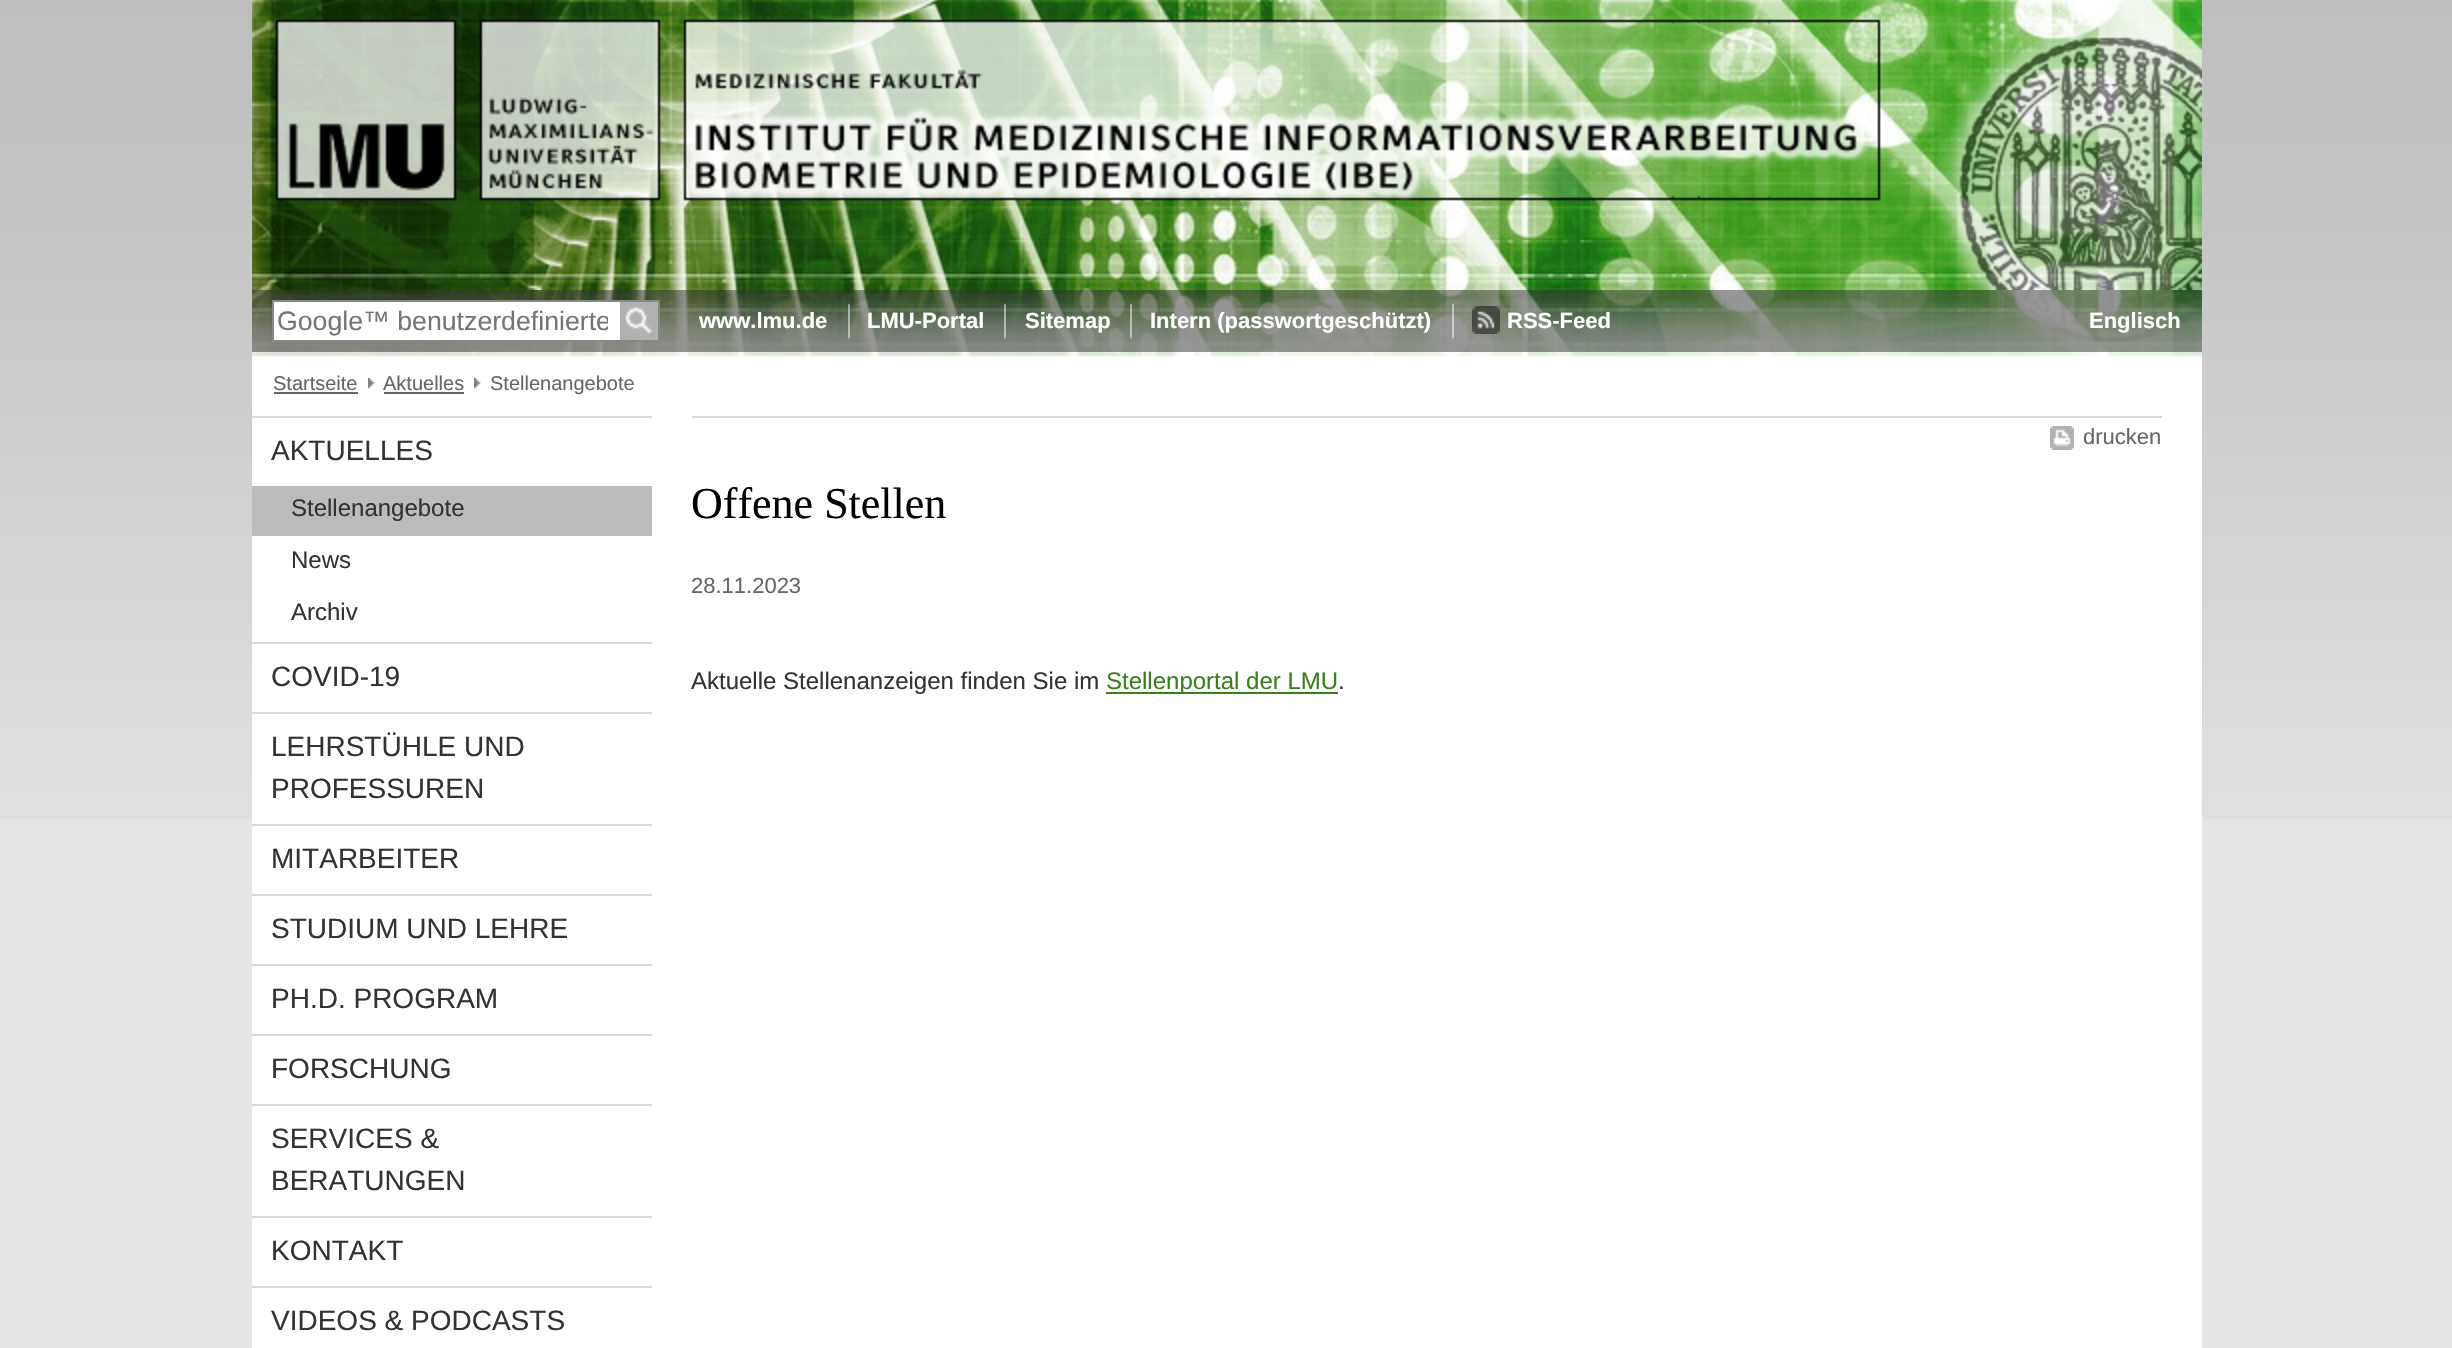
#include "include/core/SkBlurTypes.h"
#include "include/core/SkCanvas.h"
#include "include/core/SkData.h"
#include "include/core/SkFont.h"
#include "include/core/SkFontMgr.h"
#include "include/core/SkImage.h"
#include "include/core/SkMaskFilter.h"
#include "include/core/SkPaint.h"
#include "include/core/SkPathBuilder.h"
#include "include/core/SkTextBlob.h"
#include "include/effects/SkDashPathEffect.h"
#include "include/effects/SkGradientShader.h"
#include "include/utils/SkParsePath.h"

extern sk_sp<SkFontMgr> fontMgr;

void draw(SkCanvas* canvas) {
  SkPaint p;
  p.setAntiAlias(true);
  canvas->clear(SkColorSetRGB(229, 229, 229));
  canvas->drawImageRect(SkImages::DeferredFromEncodedData(SkData::MakeFromFileName("images/1.png")), SkRect::MakeLTRB(0, 0, 2452, 819), SkSamplingOptions());
  p.setColor(SK_ColorWHITE);
  canvas->drawRect(SkRect::MakeLTRB(252, 357, 2202, 1348), p);
  canvas->drawImageRect(SkImages::DeferredFromEncodedData(SkData::MakeFromFileName("images/2.png")), SkRect::MakeLTRB(252, 0, 2202, 290), SkSamplingOptions());
  canvas->drawImageRect(SkImages::DeferredFromEncodedData(SkData::MakeFromFileName("images/3.png")), SkRect::MakeLTRB(252, 290, 2202, 352), SkSamplingOptions());
  canvas->drawRect(SkRect::MakeLTRB(274, 302, 620, 340), p);
  p.setStyle(SkPaint::kStroke_Style);
  p.setStrokeWidth(2);
  p.setColor(SkColorSetRGB(136, 136, 136));
  canvas->drawRect(SkRect::MakeLTRB(273, 301, 659, 341), p);
  canvas->drawImageRect(SkImages::DeferredFromEncodedData(SkData::MakeFromFileName("images/4.png")), SkRect::MakeLTRB(620, 302, 658, 340), SkSamplingOptions());
  canvas->drawImageRect(SkImages::DeferredFromEncodedData(SkData::MakeFromFileName("images/5.png")), SkRect::MakeLTRB(848, 303, 850, 339), SkSamplingOptions());
  canvas->drawImageRect(SkImages::DeferredFromEncodedData(SkData::MakeFromFileName("images/6.png")), SkRect::MakeLTRB(1004, 303, 1006, 339), SkSamplingOptions());
  canvas->drawImageRect(SkImages::DeferredFromEncodedData(SkData::MakeFromFileName("images/7.png")), SkRect::MakeLTRB(1130, 303, 1132, 339), SkSamplingOptions());
  canvas->drawImageRect(SkImages::DeferredFromEncodedData(SkData::MakeFromFileName("images/8.png")), SkRect::MakeLTRB(1452, 303, 1454, 339), SkSamplingOptions());
  canvas->drawImageRect(SkImages::DeferredFromEncodedData(SkData::MakeFromFileName("images/9.png")), SkRect::MakeLTRB(1472, 306, 1500, 334), SkSamplingOptions());
  canvas->drawImageRect(SkImages::DeferredFromEncodedData(SkData::MakeFromFileName("images/10.png")), SkRect::MakeLTRB(252, 352, 2202, 357), SkSamplingOptions());
  p.setStyle(SkPaint::kFill_Style);
  p.setColor(SkColorSetRGB(102, 102, 102));
  canvas->drawRect(SkRect::MakeLTRB(274, 392, 358, 394), p);
  canvas->drawImageRect(SkImages::DeferredFromEncodedData(SkData::MakeFromFileName("images/11.png")), SkRect::MakeLTRB(368, 378, 375, 389), SkSamplingOptions());
  canvas->drawRect(SkRect::MakeLTRB(384, 392, 464, 394), p);
  canvas->drawImageRect(SkImages::DeferredFromEncodedData(SkData::MakeFromFileName("images/11.png")), SkRect::MakeLTRB(474, 378, 481, 389), SkSamplingOptions());
  p.setColor(SkColorSetRGB(216, 216, 216));
  canvas->drawRect(SkRect::MakeLTRB(252, 416, 652, 418), p);
  canvas->drawRect(SkRect::MakeLTRB(252, 642, 652, 644), p);
  p.setColor(SkColorSetRGB(187, 187, 187));
  canvas->drawRect(SkRect::MakeLTRB(252, 486, 652, 536), p);
  p.setColor(SkColorSetRGB(216, 216, 216));
  canvas->drawRect(SkRect::MakeLTRB(252, 712, 652, 714), p);
  canvas->drawRect(SkRect::MakeLTRB(252, 824, 652, 826), p);
  canvas->drawRect(SkRect::MakeLTRB(252, 894, 652, 896), p);
  canvas->drawRect(SkRect::MakeLTRB(252, 964, 652, 966), p);
  canvas->drawRect(SkRect::MakeLTRB(252, 1034, 652, 1036), p);
  canvas->drawRect(SkRect::MakeLTRB(252, 1104, 652, 1106), p);
  canvas->drawRect(SkRect::MakeLTRB(252, 1216, 652, 1218), p);
  canvas->drawRect(SkRect::MakeLTRB(252, 1286, 652, 1288), p);
  canvas->drawRect(SkRect::MakeLTRB(692, 416, 2162, 418), p);
  canvas->drawImageRect(SkImages::DeferredFromEncodedData(SkData::MakeFromFileName("images/12.png")), SkRect::MakeLTRB(2050, 426, 2074, 450), SkSamplingOptions());
  p.setColor(SkColorSetRGB(57, 128, 29));
  canvas->drawRect(SkRect::MakeLTRB(1106, 692, 1338, 694), p);
  canvas->save();
  canvas->clipRect(SkRect::MakeLTRB(278, 306, 608, 336));
  SkFont font1(fontMgr->matchFamilyStyle("Liberation Sans", SkFontStyle::Normal()), 26.7f);
  font1.setSubpixel(true);
  p.setColor(SkColorSetRGB(117, 117, 117));
  canvas->drawString("Google™ benutzerdefinierte", 277, 330, font1, p);
  canvas->restore();
  SkFont font2(fontMgr->matchFamilyStyle("Liberation Sans", SkFontStyle::Bold()), 22);
  font2.setSubpixel(true);
  p.setColor(SK_ColorWHITE);
  canvas->drawString("www.lmu.de", 699, 328, font2, p);
  canvas->drawString("LMU-Portal", 867, 328, font2, p);
  canvas->drawString("Sitemap", 1025, 328, font2, p);
  canvas->drawString("Intern (passwortgeschützt)", 1150, 328, font2, p);
  canvas->drawString("RSS-Feed", 1507, 328, font2, p);
  canvas->drawString("Englisch", 2089, 328, font2, p);
  SkFont font3(fontMgr->matchFamilyStyle("Liberation Sans", SkFontStyle::Normal()), 20);
  font3.setSubpixel(true);
  p.setColor(SkColorSetRGB(102, 102, 102));
  canvas->drawString("Startseite", 273, 390, font3, p);
  canvas->drawString("Aktuelles", 383, 390, font3, p);
  canvas->drawString("Stellenangebote", 490, 390, font3, p);
  SkFont font4(fontMgr->matchFamilyStyle("Liberation Sans", SkFontStyle::Normal()), 28);
  font4.setSubpixel(true);
  p.setColor(SkColorSetRGB(51, 51, 51));
  canvas->drawString("AKTUELLES", 271, 460, font4, p);
  SkFont font5(fontMgr->matchFamilyStyle("Liberation Sans", SkFontStyle::Normal()), 24);
  font5.setSubpixel(true);
  canvas->drawString("Stellenangebote", 291, 516, font5, p);
  canvas->drawString("News", 291, 568, font5, p);
  canvas->drawString("Archiv", 291, 620, font5, p);
  canvas->drawString("COVID-19", 271, 686, font4, p);
  canvas->drawString("LEHRSTÜHLE UND", 271, 756, font4, p);
  canvas->drawString("PROFESSUREN", 271, 798, font4, p);
  canvas->drawString("MITARBEITER", 271, 868, font4, p);
  canvas->drawString("STUDIUM UND LEHRE", 271, 938, font4, p);
  canvas->drawString("PH.D. PROGRAM", 271, 1008, font4, p);
  canvas->drawString("FORSCHUNG", 271, 1078, font4, p);
  canvas->drawString("SERVICES &", 271, 1148, font4, p);
  canvas->drawString("BERATUNGEN", 271, 1190, font4, p);
  canvas->drawString("KONTAKT", 271, 1260, font4, p);
  canvas->drawString("VIDEOS & PODCASTS", 271, 1330, font4, p);
  SkFont font6(fontMgr->matchFamilyStyle("Liberation Sans", SkFontStyle::Normal()), 22);
  font6.setSubpixel(true);
  p.setColor(SkColorSetRGB(102, 102, 102));
  canvas->drawString("drucken", 2083, 444, font6, p);
  SkFont font7(fontMgr->matchFamilyStyle("Liberation Serif", SkFontStyle::Normal()), 44);
  font7.setSubpixel(true);
  p.setColor(SK_ColorBLACK);
  canvas->drawString("Offene Stellen", 691, 518, font7, p);
  p.setColor(SkColorSetRGB(102, 102, 102));
  canvas->drawString("28.11.2023", 691, 593, font6, p);
  p.setColor(SkColorSetRGB(51, 51, 51));
  canvas->drawString("Aktuelle Stellenanzeigen finden Sie im", 691, 689, font5, p);
  p.setColor(SkColorSetRGB(57, 128, 29));
  canvas->drawString("Stellenportal der LMU", 1106, 689, font5, p);
  p.setColor(SkColorSetRGB(51, 51, 51));
  canvas->drawString(".", 1338, 689, font5, p);
}
